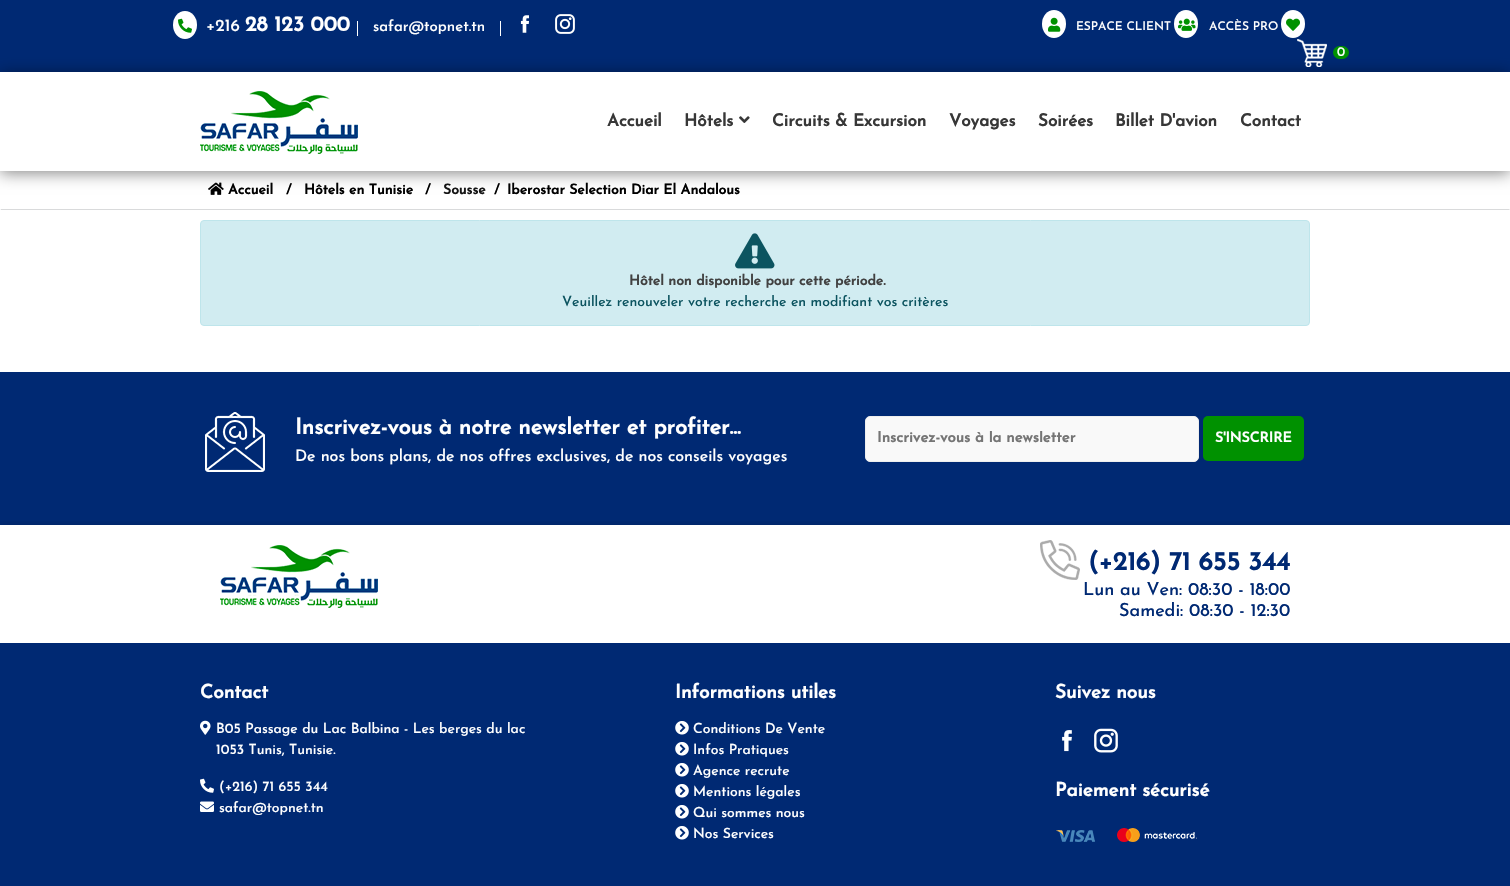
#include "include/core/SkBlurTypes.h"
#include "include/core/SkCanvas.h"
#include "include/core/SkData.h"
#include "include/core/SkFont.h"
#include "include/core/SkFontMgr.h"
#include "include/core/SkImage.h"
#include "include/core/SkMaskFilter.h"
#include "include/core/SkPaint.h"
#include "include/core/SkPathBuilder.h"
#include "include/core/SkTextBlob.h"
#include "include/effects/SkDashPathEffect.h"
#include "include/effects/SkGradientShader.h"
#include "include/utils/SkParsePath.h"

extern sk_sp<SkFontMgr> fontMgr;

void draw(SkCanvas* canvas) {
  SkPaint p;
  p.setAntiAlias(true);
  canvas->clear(SK_ColorWHITE);
  p.setColor(SkColorSetRGB(0, 41, 115));
  canvas->drawRect(SkRect::MakeLTRB(0, 0, 1510, 72), p);
  p.setColor(SK_ColorWHITE);
  canvas->drawOval(SkRect::MakeLTRB(173, 11, 197, 39), p);
  canvas->drawImageRect(SkImages::DeferredFromEncodedData(SkData::MakeFromFileName("images/1.png")), SkRect::MakeLTRB(178, 18, 192, 33), SkSamplingOptions());
  canvas->drawRect(SkRect::MakeLTRB(500, 21, 501, 36), p);
  canvas->drawRect(SkRect::MakeLTRB(357, 21, 358, 36), p);
  canvas->drawImageRect(SkImages::DeferredFromEncodedData(SkData::MakeFromFileName("images/2.png")), SkRect::MakeLTRB(520, 15, 529, 33), SkSamplingOptions());
  canvas->drawImageRect(SkImages::DeferredFromEncodedData(SkData::MakeFromFileName("images/3.png")), SkRect::MakeLTRB(555, 14, 575, 34), SkSamplingOptions());
  canvas->drawOval(SkRect::MakeLTRB(1042, 10, 1066, 38), p);
  canvas->drawImageRect(SkImages::DeferredFromEncodedData(SkData::MakeFromFileName("images/4.png")), SkRect::MakeLTRB(1048, 17, 1061, 32), SkSamplingOptions());
  canvas->drawOval(SkRect::MakeLTRB(1174, 10, 1198, 38), p);
  canvas->drawImageRect(SkImages::DeferredFromEncodedData(SkData::MakeFromFileName("images/5.png")), SkRect::MakeLTRB(1178, 18, 1196, 31), SkSamplingOptions());
  canvas->drawOval(SkRect::MakeLTRB(1281, 10, 1305, 38), p);
  canvas->drawImageRect(SkImages::DeferredFromEncodedData(SkData::MakeFromFileName("images/6.png")), SkRect::MakeLTRB(1286, 18, 1300, 31), SkSamplingOptions());
  p.setColor(SkColorSetRGB(217, 218, 219));
  canvas->drawPath(SkPathBuilder().moveTo(1510, 210).lineTo(0, 210).lineTo(1, 209).lineTo(1509, 209).close().detach(), p);
  p.setColor(SK_ColorWHITE);
  canvas->drawPath(SkPathBuilder().moveTo(0, 210).lineTo(0, 171).lineTo(1, 172).lineTo(1, 209).close().detach(), p);
  canvas->drawImageRect(SkImages::DeferredFromEncodedData(SkData::MakeFromFileName("images/10.png")), SkRect::MakeLTRB(208, 182, 224, 195), SkSamplingOptions());
  canvas->save();
  canvas->clipPath(SkPathBuilder(SkPathFillType::kEvenOdd).moveTo(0, 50).lineTo(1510, 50).lineTo(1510, 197).lineTo(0, 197).close().moveTo(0, 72).lineTo(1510, 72).lineTo(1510, 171).lineTo(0, 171).close().detach(), true);
  p.setColor(SkColorSetARGB(122, 0, 0, 0));
  p.setMaskFilter(SkMaskFilter::MakeBlur(kNormal_SkBlurStyle, 7.5f));
  canvas->drawRect(SkRect::MakeLTRB(0, 74, 1510, 173), p);
  p.setMaskFilter(nullptr);
  canvas->restore();
  canvas->drawImageRect(SkImages::DeferredFromEncodedData(SkData::MakeFromFileName("images/7.png")), SkRect::MakeLTRB(1297, 39, 1327, 67), SkSamplingOptions());
  p.setColor(SkColorSetRGB(0, 145, 0));
  canvas->drawRoundRect(SkRect::MakeLTRB(1333, 46, 1349, 59), 6.5f, 6.5f, p);
  canvas->drawImageRect(SkImages::DeferredFromEncodedData(SkData::MakeFromFileName("images/8.png")), SkRect::MakeLTRB(200, 91, 358, 154), SkSamplingOptions());
  canvas->drawImageRect(SkImages::DeferredFromEncodedData(SkData::MakeFromFileName("images/9.png")), SkRect::MakeLTRB(739, 116, 750, 123), SkSamplingOptions());
  p.setColor(SkColorSetRGB(209, 236, 241));
  canvas->drawRoundRect(SkRect::MakeLTRB(200.5f, 220.5f, 1309.5f, 325.5f), 3.5f, 3.5f, p);
  p.setStyle(SkPaint::kStroke_Style);
  p.setStrokeWidth(1);
  p.setColor(SkColorSetRGB(190, 229, 235));
  canvas->drawRoundRect(SkRect::MakeLTRB(200.5f, 220.5f, 1309.5f, 325.5f), 3.5f, 3.5f, p);
  canvas->drawImageRect(SkImages::DeferredFromEncodedData(SkData::MakeFromFileName("images/11.png")), SkRect::MakeLTRB(735, 233, 775, 269), SkSamplingOptions());
  p.setStyle(SkPaint::kFill_Style);
  p.setColor(SkColorSetRGB(0, 41, 115));
  canvas->drawRect(SkRect::MakeLTRB(0, 372, 1510, 525), p);
  canvas->drawImageRect(SkImages::DeferredFromEncodedData(SkData::MakeFromFileName("images/12.png")), SkRect::MakeLTRB(205, 412, 265, 472), SkSamplingOptions());
  p.setColor(SkColorSetRGB(249, 249, 249));
  canvas->drawRoundRect(SkRect::MakeLTRB(865.5f, 416.5f, 1198.5f, 461.5f), 4.5f, 4.5f, p);
  p.setStyle(SkPaint::kStroke_Style);
  p.setColor(SkColorSetRGB(238, 238, 238));
  canvas->drawRoundRect(SkRect::MakeLTRB(865.5f, 416.5f, 1198.5f, 461.5f), 4.5f, 4.5f, p);
  p.setStyle(SkPaint::kFill_Style);
  p.setColor(SkColorSetRGB(0, 145, 0));
  canvas->drawRoundRect(SkRect::MakeLTRB(1203, 416, 1304, 461), 5, 5, p);
  canvas->save();
  canvas->clipRect(SkRect::MakeLTRB(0, 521, 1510, 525));
  p.setColor(SkColorSetARGB(51, 0, 0, 0));
  p.setMaskFilter(SkMaskFilter::MakeBlur(kNormal_SkBlurStyle, 5));
  canvas->drawRect(SkRect::MakeLTRB(0, 527, 1510, 645), p);
  p.setMaskFilter(nullptr);
  canvas->restore();
  canvas->drawImageRect(SkImages::DeferredFromEncodedData(SkData::MakeFromFileName("images/8.png")), SkRect::MakeLTRB(220, 545, 378, 608), SkSamplingOptions());
  canvas->drawImageRect(SkImages::DeferredFromEncodedData(SkData::MakeFromFileName("images/13.png")), SkRect::MakeLTRB(1040, 540, 1080, 580), SkSamplingOptions());
  p.setColor(SkColorSetRGB(0, 41, 115));
  canvas->drawRect(SkRect::MakeLTRB(0, 643, 1510, 886), p);
  canvas->drawImageRect(SkImages::DeferredFromEncodedData(SkData::MakeFromFileName("images/14.png")), SkRect::MakeLTRB(200, 720, 211, 735), SkSamplingOptions());
  canvas->drawImageRect(SkImages::DeferredFromEncodedData(SkData::MakeFromFileName("images/15.png")), SkRect::MakeLTRB(200, 778, 214, 793), SkSamplingOptions());
  canvas->drawImageRect(SkImages::DeferredFromEncodedData(SkData::MakeFromFileName("images/16.png")), SkRect::MakeLTRB(200, 801, 214, 812), SkSamplingOptions());
  canvas->drawImageRect(SkImages::DeferredFromEncodedData(SkData::MakeFromFileName("images/17.png")), SkRect::MakeLTRB(675, 721, 689, 735), SkSamplingOptions());
  canvas->drawImageRect(SkImages::DeferredFromEncodedData(SkData::MakeFromFileName("images/17.png")), SkRect::MakeLTRB(675, 742, 689, 756), SkSamplingOptions());
  canvas->drawImageRect(SkImages::DeferredFromEncodedData(SkData::MakeFromFileName("images/17.png")), SkRect::MakeLTRB(675, 763, 689, 777), SkSamplingOptions());
  canvas->drawImageRect(SkImages::DeferredFromEncodedData(SkData::MakeFromFileName("images/17.png")), SkRect::MakeLTRB(675, 784, 689, 798), SkSamplingOptions());
  canvas->drawImageRect(SkImages::DeferredFromEncodedData(SkData::MakeFromFileName("images/17.png")), SkRect::MakeLTRB(675, 805, 689, 819), SkSamplingOptions());
  canvas->drawImageRect(SkImages::DeferredFromEncodedData(SkData::MakeFromFileName("images/17.png")), SkRect::MakeLTRB(675, 826, 689, 840), SkSamplingOptions());
  canvas->drawImageRect(SkImages::DeferredFromEncodedData(SkData::MakeFromFileName("images/18.png")), SkRect::MakeLTRB(1062, 730, 1072, 752), SkSamplingOptions());
  canvas->drawImageRect(SkImages::DeferredFromEncodedData(SkData::MakeFromFileName("images/19.png")), SkRect::MakeLTRB(1094, 728, 1118, 753), SkSamplingOptions());
  canvas->drawImageRect(SkImages::DeferredFromEncodedData(SkData::MakeFromFileName("images/20.png")), SkRect::MakeLTRB(1056, 828, 1197, 842), SkSamplingOptions());
  SkFont font1(fontMgr->matchFamilyStyle("Josefin Sans", SkFontStyle(500, SkFontStyle::kNormal_Width, SkFontStyle::kUpright_Slant)), 17);
  font1.setSubpixel(true);
  p.setColor(SK_ColorWHITE);
  canvas->drawString("+216", 206, 31, font1, p);
  SkFont font2(fontMgr->matchFamilyStyle("Josefin Sans", SkFontStyle::Bold()), 21);
  font2.setSubpixel(true);
  canvas->drawString("28 123 000", 245, 31, font2, p);
  SkFont font3(fontMgr->matchFamilyStyle("Josefin Sans", SkFontStyle(500, SkFontStyle::kNormal_Width, SkFontStyle::kUpright_Slant)), 15);
  font3.setSubpixel(true);
  canvas->drawString("safar@topnet.tn", 373, 31, font3, p);
  SkFont font4(fontMgr->matchFamilyStyle("Josefin Sans", SkFontStyle(500, SkFontStyle::kNormal_Width, SkFontStyle::kUpright_Slant)), 12);
  font4.setSubpixel(true);
  canvas->drawString("ESPACE CLIENT", 1076, 30, font4, p);
  canvas->drawString("ACCÈS PRO", 1209, 30, font4, p);
  SkFont font5(fontMgr->matchFamilyStyle("Josefin Sans", SkFontStyle(500, SkFontStyle::kNormal_Width, SkFontStyle::kUpright_Slant)), 13);
  font5.setSubpixel(true);
  canvas->drawString("0", 1337, 56, font5, p);
  SkFont font6(fontMgr->matchFamilyStyle("Josefin Sans", SkFontStyle::Bold()), 17);
  font6.setSubpixel(true);
  p.setColor(SkColorSetRGB(55, 55, 55));
  canvas->drawString("Accueil", 607, 126, font6, p);
  canvas->drawString("Hôtels", 684, 126, font6, p);
  canvas->drawString("Circuits & Excursion", 772, 126, font6, p);
  canvas->drawString("Voyages", 949, 126, font6, p);
  canvas->drawString("Soirées", 1038, 126, font6, p);
  canvas->drawString("Billet D'avion", 1115, 126, font6, p);
  canvas->drawString("Contact", 1240, 126, font6, p);
  SkFont font7(fontMgr->matchFamilyStyle("Josefin Sans", SkFontStyle::Bold()), 14);
  font7.setSubpixel(true);
  p.setColor(SK_ColorBLACK);
  canvas->drawString("Accueil", 228, 194, font7, p);
  canvas->drawString("/", 286, 194, font7, p);
  canvas->drawString("Hôtels en Tunisie", 304, 194, font7, p);
  canvas->drawString("/", 425, 194, font7, p);
  p.setColor(SkColorSetRGB(21, 21, 21));
  canvas->drawString("Sousse", 443, 194, font7, p);
  p.setColor(SK_ColorBLACK);
  canvas->drawString("/", 494, 194, font7, p);
  canvas->drawString("Iberostar Selection Diar El Andalous", 507, 194, font7, p);
  p.setColor(SkColorSetRGB(65, 65, 65));
  canvas->drawString("Hôtel non disponible pour cette période.", 629, 285, font7, p);
  SkFont font8(fontMgr->matchFamilyStyle("Josefin Sans", SkFontStyle(500, SkFontStyle::kNormal_Width, SkFontStyle::kUpright_Slant)), 14);
  font8.setSubpixel(true);
  p.setColor(SkColorSetRGB(12, 84, 96));
  canvas->drawString("Veuillez renouveler votre recherche en modifiant vos critères", 562, 306, font8, p);
  SkFont font9(fontMgr->matchFamilyStyle("Josefin Sans", SkFontStyle::Bold()), 22);
  font9.setSubpixel(true);
  p.setColor(SK_ColorWHITE);
  canvas->drawString("Inscrivez-vous à notre newsletter et profiter...", 295, 434, font9, p);
  SkFont font10(fontMgr->matchFamilyStyle("Josefin Sans", SkFontStyle(500, SkFontStyle::kNormal_Width, SkFontStyle::kUpright_Slant)), 16);
  font10.setSubpixel(true);
  canvas->drawString("De nos bons plans, de nos offres exclusives, de nos conseils voyages", 295, 461, font10, p);
  canvas->save();
  canvas->clipRect(SkRect::MakeLTRB(877, 431, 1187, 446));
  SkFont font11(fontMgr->matchFamilyStyle("Josefin Sans", SkFontStyle::Bold()), 15);
  font11.setSubpixel(true);
  p.setColor(SkColorSetRGB(117, 117, 117));
  canvas->drawString("Inscrivez-vous à la newsletter", 877, 442, font11, p);
  canvas->restore();
  p.setColor(SK_ColorWHITE);
  canvas->drawString("S'INSCRIRE", 1215, 442, font7, p);
  SkFont font12(fontMgr->matchFamilyStyle("Josefin Sans", SkFontStyle::Bold()), 26);
  font12.setSubpixel(true);
  p.setColor(SkColorSetRGB(0, 41, 115));
  canvas->drawString("(+216) 71 655 344", 1088, 570, font12, p);
  SkFont font13(fontMgr->matchFamilyStyle("Josefin Sans", SkFontStyle(500, SkFontStyle::kNormal_Width, SkFontStyle::kUpright_Slant)), 18);
  font13.setSubpixel(true);
  canvas->drawString("Lun au Ven: 08:30 - 18:00", 1083, 595, font13, p);
  canvas->drawString("Samedi: 08:30 - 12:30", 1119, 616, font13, p);
  SkFont font14(fontMgr->matchFamilyStyle("Josefin Sans", SkFontStyle::Bold()), 19);
  font14.setSubpixel(true);
  p.setColor(SK_ColorWHITE);
  canvas->drawString("Contact", 200, 698, font14, p);
  canvas->drawString("B05 Passage du Lac Balbina - Les berges du lac", 216, 733, font8, p);
  canvas->drawString("1053 Tunis, Tunisie.", 216, 754, font8, p);
  canvas->drawString("(+216) 71 655 344", 219, 791, font8, p);
  canvas->drawString("safar@topnet.tn", 219, 812, font8, p);
  canvas->drawString("Informations utiles", 675, 698, font14, p);
  canvas->drawString("Conditions De Vente", 693, 733, font8, p);
  canvas->drawString("Infos Pratiques", 693, 754, font8, p);
  canvas->drawString("Agence recrute", 693, 775, font8, p);
  canvas->drawString("Mentions légales", 693, 796, font8, p);
  canvas->drawString("Qui sommes nous", 693, 817, font8, p);
  canvas->drawString("Nos Services", 693, 838, font8, p);
  canvas->drawString("Suivez nous", 1055, 698, font14, p);
  canvas->drawString("Paiement sécurisé", 1055, 796, font14, p);
}
